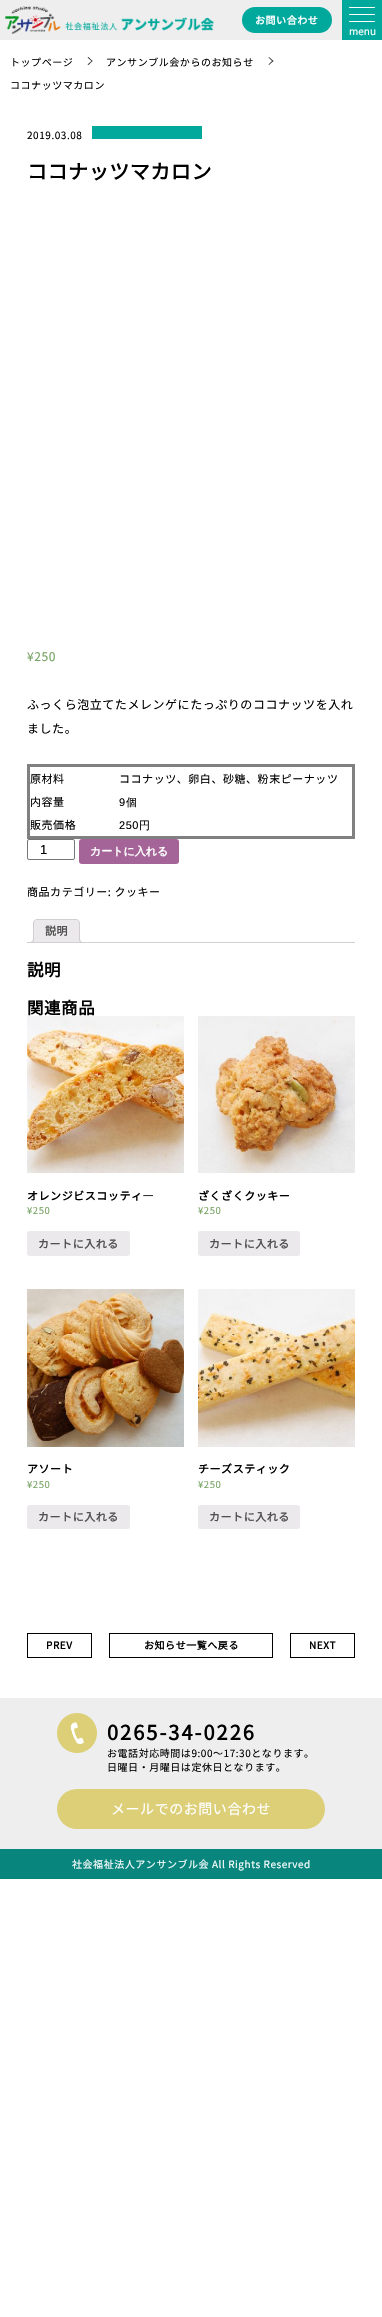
#include "include/core/SkBlurTypes.h"
#include "include/core/SkCanvas.h"
#include "include/core/SkData.h"
#include "include/core/SkFont.h"
#include "include/core/SkFontMgr.h"
#include "include/core/SkImage.h"
#include "include/core/SkMaskFilter.h"
#include "include/core/SkPaint.h"
#include "include/core/SkPathBuilder.h"
#include "include/core/SkTextBlob.h"
#include "include/effects/SkDashPathEffect.h"
#include "include/effects/SkGradientShader.h"
#include "include/utils/SkParsePath.h"

extern sk_sp<SkFontMgr> fontMgr;

void draw(SkCanvas* canvas) {
  SkPaint p;
  p.setAntiAlias(true);
  auto spacedText = [&](const char* s, float x, float y, const SkFont& font, const SkPaint& ink, float letter, float word) {
    std::vector<SkGlyphID> glyphs(font.countText(s, strlen(s), SkTextEncoding::kUTF8));
    std::vector<float> xs(glyphs.size());
    font.textToGlyphs(s, strlen(s), SkTextEncoding::kUTF8, glyphs);
    font.getXPos(glyphs, xs, x);
    float extra = 0;
    for (size_t i = 0; i < glyphs.size(); i++) {
      xs[i] += extra;
      extra += letter + word * (glyphs[i] == font.unicharToGlyph(' '));
    }
    canvas->drawTextBlob(SkTextBlob::MakeFromPosHGlyphs(glyphs, xs, y, font), 0, 0, ink);
  };
  canvas->clear(SK_ColorWHITE);
  p.setColor(SkColorSetRGB(238, 238, 238));
  canvas->drawRect(SkRect::MakeLTRB(0, 0, 342, 40), p);
  canvas->drawImageRect(SkImages::DeferredFromEncodedData(SkData::MakeFromFileName("images/1.png")), SkRect::MakeLTRB(5, 6, 214, 34), SkSamplingOptions());
  p.setColor(SkColorSetRGB(1, 169, 157));
  canvas->drawRoundRect(SkRect::MakeLTRB(242, 7, 332, 33), 13, 13, p);
  canvas->drawRect(SkRect::MakeLTRB(342, 0, 382, 40), p);
  p.setColor(SK_ColorWHITE);
  canvas->drawRoundRect(SkRect::MakeLTRB(349, 7, 375, 8), 0.5f, 0.5f, p);
  canvas->drawRoundRect(SkRect::MakeLTRB(349, 14, 375, 15), 0.5f, 0.5f, p);
  canvas->drawRoundRect(SkRect::MakeLTRB(349, 21, 375, 22), 0.5f, 0.5f, p);
  p.setColor(SkColorSetRGB(51, 51, 51));
  canvas->drawPath(SkPathBuilder().moveTo(88.5f, 57).lineTo(92.5f, 61).lineTo(92, 61.5f).lineTo(87.5f, 57.5f).close().detach(), p);
  canvas->drawPath(SkPathBuilder().moveTo(92, 60.5f).lineTo(92.5f, 61).lineTo(88.5f, 65).lineTo(87.5f, 64.5f).close().detach(), p);
  canvas->drawPath(SkPathBuilder().moveTo(269, 57).lineTo(273.5f, 61).lineTo(272.5f, 61.5f).lineTo(268.5f, 57.5f).close().detach(), p);
  canvas->drawPath(SkPathBuilder().moveTo(272.5f, 60.5f).lineTo(273.5f, 61).lineTo(269, 65).lineTo(268.5f, 64.5f).close().detach(), p);
  p.setColor(SkColorSetRGB(1, 169, 157));
  canvas->drawRect(SkRect::MakeLTRB(92, 126, 202, 139), p);
  p.setColor(SkColorSetRGB(128, 128, 128));
  canvas->drawRect(SkRect::MakeLTRB(27, 764, 355, 767), p);
  canvas->drawRect(SkRect::MakeLTRB(352, 764, 355, 839), p);
  canvas->drawRect(SkRect::MakeLTRB(27, 836, 355, 839), p);
  canvas->drawRect(SkRect::MakeLTRB(27, 764, 30, 839), p);
  p.setStyle(SkPaint::kStroke_Style);
  p.setStrokeWidth(1);
  p.setColor(SkColorSetRGB(118, 118, 118));
  canvas->drawRoundRect(SkRect::MakeLTRB(27.5f, 839.5f, 74.5f, 859.5f), 1.5f, 1.5f, p);
  p.setStyle(SkPaint::kFill_Style);
  p.setColor(SkColorSetRGB(164, 100, 151));
  canvas->drawRoundRect(SkRect::MakeLTRB(79, 839, 179, 864), 3, 3, p);
  p.setColor(SkColorSetRGB(235, 233, 235));
  canvas->drawPath(SkPathBuilder().moveTo(37, 919.5f).lineTo(76, 919.5f).cubicTo(78, 919.5f, 79.5f, 921, 79.5f, 923).lineTo(79.5f, 942.5f).lineTo(33.5f, 942.5f).lineTo(33.5f, 923).cubicTo(33.5f, 921, 35, 919.5f, 37, 919.5f).close().detach(), p);
  p.setStyle(SkPaint::kStroke_Style);
  p.setColor(SkColorSetRGB(211, 206, 210));
  canvas->drawPath(SkPathBuilder().moveTo(37, 919.5f).lineTo(76, 919.5f).cubicTo(78, 919.5f, 79.5f, 921, 79.5f, 923).lineTo(79.5f, 942.5f).lineTo(33.5f, 942.5f).lineTo(33.5f, 923).cubicTo(33.5f, 921, 35, 919.5f, 37, 919.5f).close().detach(), p);
  canvas->save();
  canvas->clipRect(SkRect::MakeLTRB(27, 919, 355, 943));
  p.setStyle(SkPaint::kFill_Style);
  p.setColor(SkColorSetRGB(235, 233, 235));
  canvas->drawPath(SkPathBuilder().moveTo(31, 943).lineTo(31, 945).cubicTo(34.5f, 945, 36, 943.5f, 36, 940).lineTo(34, 940).cubicTo(33.5f, 941.5f, 32.5f, 942.5f, 31, 943).close().detach(), p);
  canvas->restore();
  p.setColor(SkColorSetRGB(211, 206, 210));
  canvas->drawPath(SkPathBuilder(SkPathFillType::kEvenOdd).moveTo(29, 938).lineTo(34, 938).cubicTo(34, 941.5f, 32.5f, 943, 29, 943).close().moveTo(29, 938).lineTo(33, 938).cubicTo(33, 941, 32, 942, 29, 942).close().detach(), p);
  canvas->save();
  canvas->clipRect(SkRect::MakeLTRB(27, 919, 355, 943));
  p.setColor(SkColorSetRGB(235, 233, 235));
  canvas->drawPath(SkPathBuilder().moveTo(77, 940).cubicTo(77, 943.5f, 78.5f, 945, 82, 945).lineTo(82, 943).cubicTo(80.5f, 942.5f, 79.5f, 941.5f, 79, 940).close().detach(), p);
  canvas->restore();
  p.setColor(SkColorSetRGB(211, 206, 210));
  canvas->drawPath(SkPathBuilder(SkPathFillType::kEvenOdd).moveTo(79, 938).lineTo(84, 938).lineTo(84, 943).cubicTo(81.5f, 943, 79, 942, 79, 939).close().moveTo(80, 938).lineTo(84, 938).lineTo(84, 942).cubicTo(82, 942, 80, 941.5f, 80, 939).close().detach(), p);
  canvas->drawRect(SkRect::MakeLTRB(27, 942, 355, 943), p);
  canvas->drawImageRect(SkImages::DeferredFromEncodedData(SkData::MakeFromFileName("images/2.png")), SkRect::MakeLTRB(27, 1016, 184, 1173), SkSamplingOptions());
  p.setColor(SkColorSetRGB(235, 233, 235));
  canvas->drawRoundRect(SkRect::MakeLTRB(27, 1231, 130, 1256), 3, 3, p);
  canvas->drawImageRect(SkImages::DeferredFromEncodedData(SkData::MakeFromFileName("images/3.png")), SkRect::MakeLTRB(198, 1016, 355, 1173), SkSamplingOptions());
  canvas->drawRoundRect(SkRect::MakeLTRB(198, 1231, 300, 1256), 3, 3, p);
  canvas->drawImageRect(SkImages::DeferredFromEncodedData(SkData::MakeFromFileName("images/4.png")), SkRect::MakeLTRB(27, 1289, 184, 1447), SkSamplingOptions());
  canvas->drawRoundRect(SkRect::MakeLTRB(27, 1505, 130, 1529), 3, 3, p);
  canvas->drawImageRect(SkImages::DeferredFromEncodedData(SkData::MakeFromFileName("images/5.png")), SkRect::MakeLTRB(198, 1289, 355, 1447), SkSamplingOptions());
  canvas->drawRoundRect(SkRect::MakeLTRB(198, 1505, 300, 1529), 3, 3, p);
  p.setStyle(SkPaint::kStroke_Style);
  p.setColor(SK_ColorBLACK);
  canvas->drawRect(SkRect::MakeLTRB(27.5f, 1633.5f, 91.5f, 1657.5f), p);
  canvas->drawRect(SkRect::MakeLTRB(109.5f, 1633.5f, 272.5f, 1657.5f), p);
  canvas->drawRect(SkRect::MakeLTRB(290.5f, 1633.5f, 354.5f, 1657.5f), p);
  p.setStyle(SkPaint::kFill_Style);
  p.setColor(SkColorSetRGB(238, 238, 238));
  canvas->drawRect(SkRect::MakeLTRB(0, 1698, 382, 1849), p);
  canvas->drawImageRect(SkImages::DeferredFromEncodedData(SkData::MakeFromFileName("images/6.png")), SkRect::MakeLTRB(57, 1713, 97, 1753), SkSamplingOptions());
  p.setColor(SkColorSetRGB(220, 207, 119));
  canvas->drawRoundRect(SkRect::MakeLTRB(57, 1789, 325, 1829), 20, 20, p);
  p.setColor(SkColorSetRGB(8, 134, 126));
  canvas->drawRect(SkRect::MakeLTRB(0, 1849, 382, 1879), p);
  SkFont font1(fontMgr->matchFamilyStyle("Noto Sans JP", SkFontStyle::Bold()), 10);
  font1.setSubpixel(true);
  p.setColor(SK_ColorWHITE);
  spacedText("お問い合わせ", 255, 24, font1, p, 0.55f, 0);
  SkFont font2(fontMgr->matchFamilyStyle("Noto Sans JP", SkFontStyle(100, SkFontStyle::kNormal_Width, SkFontStyle::kUpright_Slant)), 10);
  font2.setSubpixel(true);
  canvas->drawString("menu", 349, 35, font2, p);
  p.setColor(SK_ColorBLACK);
  spacedText("トップページ", 10, 66, font2, p, 0.55f, 0);
  spacedText("アンサンブル会からのお知らせ", 106, 66, font2, p, 0.55f, 0);
  spacedText("ココナッツマカロン", 10, 89, font2, p, 0.55f, 0);
  spacedText("2019.03.08", 27, 139, font2, p, 0.55f, 0);
  SkFont font3(fontMgr->matchFamilyStyle("Noto Sans JP", SkFontStyle::Bold()), 20);
  font3.setSubpixel(true);
  spacedText("ココナッツマカロン", 27, 179, font3, p, 0.55f, 0);
  SkFont font4(fontMgr->matchFamilyStyle("Noto Sans JP", SkFontStyle(100, SkFontStyle::kNormal_Width, SkFontStyle::kUpright_Slant)), 12);
  font4.setSubpixel(true);
  p.setColor(SkColorSetRGB(119, 164, 100));
  spacedText("¥250", 27, 661, font4, p, 0.55f, 0);
  p.setColor(SK_ColorBLACK);
  spacedText("ふっくら泡立てたメレンゲにたっぷりのココナッツを入れ", 27, 709, font4, p, 0.55f, 0);
  spacedText("ました。", 27, 733, font4, p, 0.55f, 0);
  SkFont font5(fontMgr->matchFamilyStyle("Noto Sans JP", SkFontStyle(100, SkFontStyle::kNormal_Width, SkFontStyle::kUpright_Slant)), 11);
  font5.setSubpixel(true);
  spacedText("原材料", 30, 783, font5, p, 0.55f, 0);
  spacedText("ココナッツ、卵白、砂糖、粉末ピーナッツ", 119, 783, font5, p, 0.55f, 0);
  spacedText("内容量", 30, 806, font5, p, 0.55f, 0);
  SkFont font6(fontMgr->matchFamilyStyle("Liberation Sans", SkFontStyle::Normal()), 11);
  font6.setSubpixel(true);
  spacedText("9", 119, 806, font6, p, 0.55f, 0);
  SkFont font7(fontMgr->matchFamilyStyle("WenQuanYi Zen Hei", SkFontStyle(500, SkFontStyle::kNormal_Width, SkFontStyle::kUpright_Slant)), 11);
  font7.setSubpixel(true);
  spacedText("個", 126, 806, font7, p, 0.55f, 0);
  spacedText("販売価格", 30, 829, font5, p, 0.55f, 0);
  spacedText("250", 119, 829, font6, p, 0.55f, 0);
  spacedText("円", 139, 829, font7, p, 0.55f, 0);
  SkFont font8(fontMgr->matchFamilyStyle("Liberation Sans", SkFontStyle::Normal()), 13);
  font8.setSubpixel(true);
  canvas->drawString("1", 40, 854, font8, p);
  SkFont font9(fontMgr->matchFamilyStyle("WenQuanYi Zen Hei", SkFontStyle::Bold()), 11);
  font9.setSubpixel(true);
  p.setColor(SK_ColorWHITE);
  canvas->drawString("カートに入れる", 90, 855, font9, p);
  p.setColor(SK_ColorBLACK);
  spacedText("商品カテゴリー: クッキー", 27, 896, font5, p, 0.55f, 0);
  SkFont font10(fontMgr->matchFamilyStyle("Noto Sans JP", SkFontStyle::Bold()), 11);
  font10.setSubpixel(true);
  p.setColor(SkColorSetRGB(81, 81, 81));
  spacedText("説明", 45, 935, font10, p, 0.55f, 0);
  SkFont font11(fontMgr->matchFamilyStyle("Noto Sans JP", SkFontStyle::Bold()), 16.5f);
  font11.setSubpixel(true);
  p.setColor(SK_ColorBLACK);
  spacedText("説明", 27, 976, font11, p, 0.55f, 0);
  spacedText("関連商品", 27, 1014, font11, p, 0.55f, 0);
  spacedText("オレンジビスコッティ―", 27, 1200, font10, p, 0.55f, 0);
  SkFont font12(fontMgr->matchFamilyStyle("Noto Sans JP", SkFontStyle(100, SkFontStyle::kNormal_Width, SkFontStyle::kUpright_Slant)), 9.5f);
  font12.setSubpixel(true);
  p.setColor(SkColorSetRGB(119, 164, 100));
  spacedText("¥250", 27, 1214, font12, p, 0.55f, 0);
  p.setColor(SkColorSetRGB(81, 81, 81));
  spacedText("カートに入れる", 38, 1248, font10, p, 0.55f, 0);
  p.setColor(SK_ColorBLACK);
  spacedText("ざくざくクッキー", 198, 1200, font10, p, 0.55f, 0);
  p.setColor(SkColorSetRGB(119, 164, 100));
  spacedText("¥250", 198, 1214, font12, p, 0.55f, 0);
  p.setColor(SkColorSetRGB(81, 81, 81));
  spacedText("カートに入れる", 209, 1248, font10, p, 0.55f, 0);
  p.setColor(SK_ColorBLACK);
  spacedText("アソート", 27, 1473, font10, p, 0.55f, 0);
  p.setColor(SkColorSetRGB(119, 164, 100));
  spacedText("¥250", 27, 1488, font12, p, 0.55f, 0);
  p.setColor(SkColorSetRGB(81, 81, 81));
  spacedText("カートに入れる", 38, 1521, font10, p, 0.55f, 0);
  p.setColor(SK_ColorBLACK);
  spacedText("チーズスティック", 198, 1473, font10, p, 0.55f, 0);
  p.setColor(SkColorSetRGB(119, 164, 100));
  spacedText("¥250", 198, 1488, font12, p, 0.55f, 0);
  p.setColor(SkColorSetRGB(81, 81, 81));
  spacedText("カートに入れる", 209, 1521, font10, p, 0.55f, 0);
  p.setColor(SK_ColorBLACK);
  spacedText("PREV", 46, 1649, font1, p, 0.55f, 0);
  spacedText("お知らせ一覧へ戻る", 144, 1649, font1, p, 0.55f, 0);
  spacedText("NEXT", 309, 1649, font1, p, 0.55f, 0);
  spacedText("0265-34-0226", 107, 1740, font3, p, 2, 0);
  spacedText("お電話対応時間は9:00〜17:30となります。", 107, 1757, font2, p, 0.55f, 0);
  spacedText("⽇曜日・月曜日は定休⽇となります。", 107, 1771, font2, p, 0.55f, 0);
  SkFont font13(fontMgr->matchFamilyStyle("Noto Sans JP", SkFontStyle(100, SkFontStyle::kNormal_Width, SkFontStyle::kUpright_Slant)), 14);
  font13.setSubpixel(true);
  p.setColor(SK_ColorWHITE);
  spacedText("メールでのお問い合わせ", 111, 1814, font13, p, 0.55f, 0);
  spacedText("社会福祉法人アンサンブル会 All Rights Reserved", 72, 1868, font2, p, 0.55f, 0);
}
